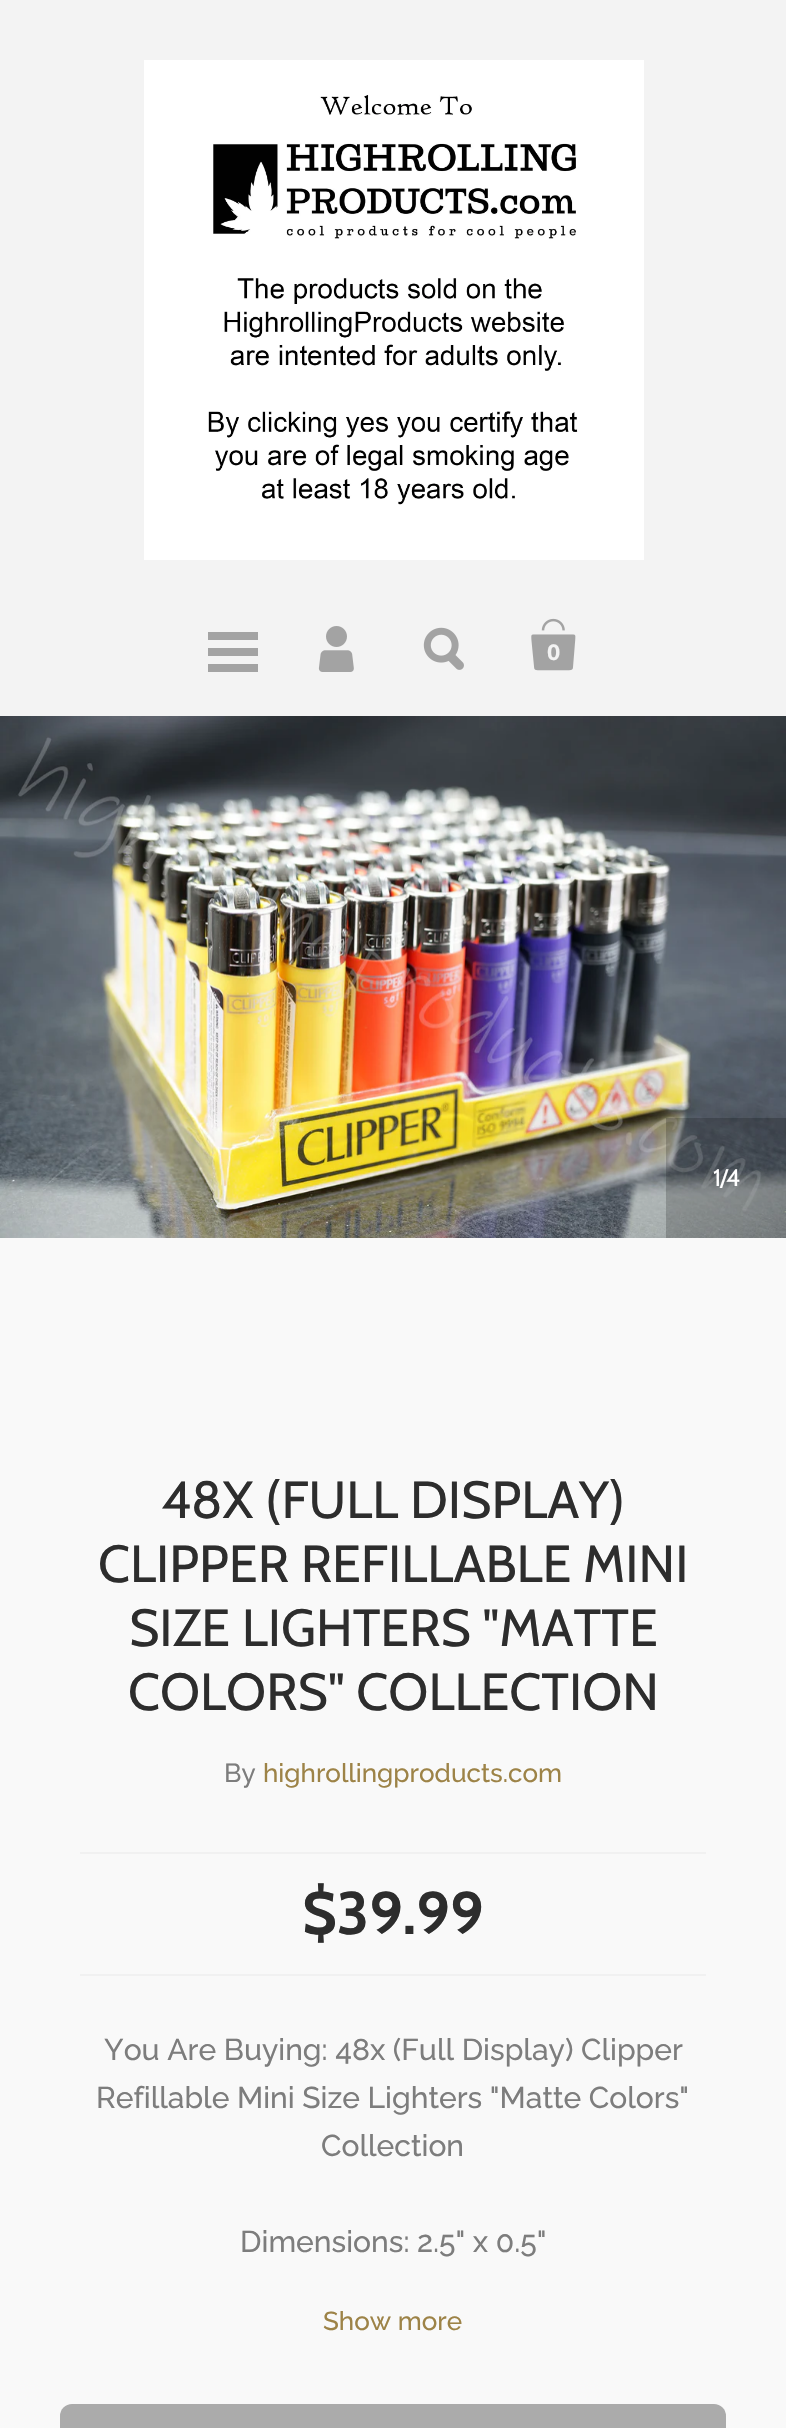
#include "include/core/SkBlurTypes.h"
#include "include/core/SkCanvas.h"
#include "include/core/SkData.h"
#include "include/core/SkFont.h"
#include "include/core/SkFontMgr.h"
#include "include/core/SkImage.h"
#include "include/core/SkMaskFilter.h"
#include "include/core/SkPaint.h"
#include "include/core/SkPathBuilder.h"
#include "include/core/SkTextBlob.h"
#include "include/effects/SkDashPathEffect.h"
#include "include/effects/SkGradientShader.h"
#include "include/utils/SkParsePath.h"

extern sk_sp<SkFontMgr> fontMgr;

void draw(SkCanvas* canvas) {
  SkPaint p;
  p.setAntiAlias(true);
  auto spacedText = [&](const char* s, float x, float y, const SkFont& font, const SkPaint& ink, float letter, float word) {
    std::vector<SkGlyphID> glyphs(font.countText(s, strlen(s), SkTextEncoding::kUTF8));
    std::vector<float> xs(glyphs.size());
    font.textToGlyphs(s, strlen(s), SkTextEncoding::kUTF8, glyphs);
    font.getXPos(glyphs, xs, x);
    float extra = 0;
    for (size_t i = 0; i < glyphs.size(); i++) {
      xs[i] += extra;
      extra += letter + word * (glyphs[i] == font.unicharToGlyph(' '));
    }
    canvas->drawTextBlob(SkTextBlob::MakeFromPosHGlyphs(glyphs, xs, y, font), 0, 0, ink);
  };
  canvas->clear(SkColorSetRGB(249, 249, 249));
  p.setColor(SkColorSetRGB(243, 243, 243));
  canvas->drawRect(SkRect::MakeLTRB(0, 0, 786, 716), p);
  canvas->drawImageRect(SkImages::DeferredFromEncodedData(SkData::MakeFromFileName("images/1.png")), SkRect::MakeLTRB(144, 60, 644, 560), SkSamplingOptions());
  p.setColor(SkColorSetRGB(163, 163, 163));
  canvas->drawRect(SkRect::MakeLTRB(208, 632, 258, 640), p);
  canvas->drawRect(SkRect::MakeLTRB(208, 648, 258, 656), p);
  canvas->drawRect(SkRect::MakeLTRB(208, 664, 258, 672), p);
  canvas->drawImageRect(SkImages::DeferredFromEncodedData(SkData::MakeFromFileName("images/2.png")), SkRect::MakeLTRB(318, 626, 354, 672), SkSamplingOptions());
  canvas->drawImageRect(SkImages::DeferredFromEncodedData(SkData::MakeFromFileName("images/3.png")), SkRect::MakeLTRB(423, 627, 464, 670), SkSamplingOptions());
  canvas->drawImageRect(SkImages::DeferredFromEncodedData(SkData::MakeFromFileName("images/4.png")), SkRect::MakeLTRB(531, 618, 576, 671), SkSamplingOptions());
  canvas->drawImageRect(SkImages::DeferredFromEncodedData(SkData::MakeFromFileName("images/5.png")), SkRect::MakeLTRB(0, 716, 786, 1238), SkSamplingOptions());
  p.setColor(SkColorSetARGB(51, 0, 0, 0));
  canvas->drawRect(SkRect::MakeLTRB(666, 1118, 786, 1238), p);
  p.setColor(SkColorSetRGB(241, 241, 241));
  canvas->drawRect(SkRect::MakeLTRB(80, 1852, 706, 1854), p);
  canvas->drawRect(SkRect::MakeLTRB(80, 1974, 706, 1976), p);
  p.setColor(SkColorSetRGB(171, 171, 171));
  canvas->drawRoundRect(SkRect::MakeLTRB(60, 2404, 726, 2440), 12, 12, p);
  SkFont font1(fontMgr->matchFamilyStyle("Nunito", SkFontStyle(800, SkFontStyle::kNormal_Width, SkFontStyle::kUpright_Slant)), 22);
  font1.setSubpixel(true);
  p.setColor(SkColorSetRGB(243, 243, 243));
  canvas->drawString("0", 547, 660, font1, p);
  SkFont font2(fontMgr->matchFamilyStyle("Cabin", SkFontStyle::Normal()), 24);
  font2.setSubpixel(true);
  p.setColor(SK_ColorWHITE);
  canvas->drawString("1", 713, 1186, font2, p);
  spacedText("/", 720, 1186, font2, p, -4, 0);
  canvas->drawString("4", 726, 1186, font2, p);
  SkFont font3(fontMgr->matchFamilyStyle("Cabin", SkFontStyle::Normal()), 52);
  font3.setSubpixel(true);
  p.setColor(SkColorSetRGB(45, 45, 45));
  canvas->drawString("48X (FULL DISPLAY)", 161, 1518, font3, p);
  canvas->drawString("CLIPPER REFILLABLE MINI", 98, 1582, font3, p);
  canvas->drawString("SIZE LIGHTERS \"MATTE", 129, 1646, font3, p);
  canvas->drawString("COLORS\" COLLECTION", 128, 1710, font3, p);
  SkFont font4(fontMgr->matchFamilyStyle("Raleway", SkFontStyle(500, SkFontStyle::kNormal_Width, SkFontStyle::kUpright_Slant)), 26);
  font4.setSubpixel(true);
  p.setColor(SkColorSetRGB(125, 125, 125));
  canvas->drawString("By", 224, 1782, font4, p);
  p.setColor(SkColorSetRGB(157, 131, 71));
  canvas->drawString("highrollingproducts.com", 263, 1782, font4, p);
  SkFont font5(fontMgr->matchFamilyStyle("Cabin", SkFontStyle::Bold()), 60);
  font5.setSubpixel(true);
  p.setColor(SkColorSetRGB(45, 45, 45));
  canvas->drawString("$39.99", 302, 1934, font5, p);
  SkFont font6(fontMgr->matchFamilyStyle("Raleway", SkFontStyle(500, SkFontStyle::kNormal_Width, SkFontStyle::kUpright_Slant)), 30);
  font6.setSubpixel(true);
  p.setColor(SkColorSetRGB(125, 125, 125));
  canvas->drawString("You Are Buying: 48x (Full Display) Clipper", 104, 2060, font6, p);
  canvas->drawString("Refillable Mini Size Lighters \"Matte Colors\"", 96, 2108, font6, p);
  canvas->drawString("Collection", 321, 2156, font6, p);
  canvas->drawString("Dimensions: 2.5\" x 0.5\"", 240, 2252, font6, p);
  p.setColor(SkColorSetRGB(157, 131, 71));
  canvas->drawString("Show more", 323, 2330, font4, p);
}
